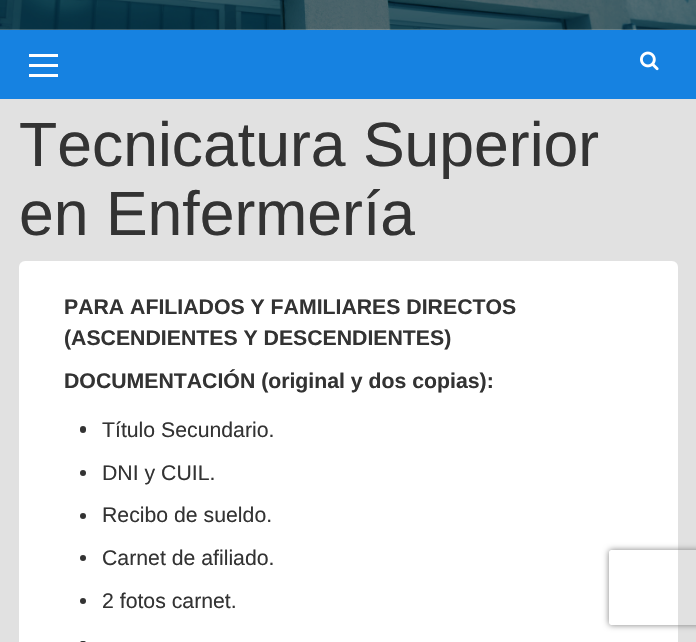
#include "include/core/SkBlurTypes.h"
#include "include/core/SkCanvas.h"
#include "include/core/SkData.h"
#include "include/core/SkFont.h"
#include "include/core/SkFontMgr.h"
#include "include/core/SkImage.h"
#include "include/core/SkMaskFilter.h"
#include "include/core/SkPaint.h"
#include "include/core/SkPathBuilder.h"
#include "include/core/SkTextBlob.h"
#include "include/effects/SkDashPathEffect.h"
#include "include/effects/SkGradientShader.h"
#include "include/utils/SkParsePath.h"

extern sk_sp<SkFontMgr> fontMgr;

void draw(SkCanvas* canvas) {
  SkPaint p;
  p.setAntiAlias(true);
  canvas->clear(SkColorSetRGB(225, 225, 225));
  canvas->drawImageRect(SkImages::DeferredFromEncodedData(SkData::MakeFromFileName("images/1.png")), SkRect::MakeLTRB(0, 0, 696, 30), SkSamplingOptions());
  p.setColor(SkColorSetRGB(22, 130, 225));
  canvas->drawRect(SkRect::MakeLTRB(0, 30, 696, 99), p);
  p.setColor(SK_ColorWHITE);
  canvas->drawRect(SkRect::MakeLTRB(29, 64, 58, 67), p);
  canvas->drawRect(SkRect::MakeLTRB(29, 54, 58, 57), p);
  canvas->drawRect(SkRect::MakeLTRB(29, 74, 58, 77), p);
  canvas->drawImageRect(SkImages::DeferredFromEncodedData(SkData::MakeFromFileName("images/2.png")), SkRect::MakeLTRB(640, 51, 659, 71), SkSamplingOptions());
  canvas->drawRoundRect(SkRect::MakeLTRB(19, 261, 678, 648), 6, 6, p);
  p.setColor(SkColorSetRGB(51, 51, 51));
  canvas->drawRoundRect(SkRect::MakeLTRB(80, 426, 86, 433), 3, 3, p);
  canvas->drawCircle(83, 473, 3, p);
  canvas->drawCircle(83, 516, 3, p);
  canvas->drawCircle(83, 558, 3, p);
  canvas->drawCircle(83, 601, 3, p);
  canvas->drawRoundRect(SkRect::MakeLTRB(80, 641, 86, 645), 3, 3, p);
  canvas->save();
  canvas->clipPath(SkPathBuilder(SkPathFillType::kEvenOdd).moveTo(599, 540).lineTo(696, 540).lineTo(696, 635).lineTo(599, 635).close().moveTo(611.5f, 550).lineTo(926.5f, 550).cubicTo(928, 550, 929, 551, 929, 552.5f).lineTo(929, 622.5f).cubicTo(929, 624, 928, 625, 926.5f, 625).lineTo(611.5f, 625).cubicTo(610, 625, 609, 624, 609, 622.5f).lineTo(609, 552.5f).cubicTo(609, 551, 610, 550, 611.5f, 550).close().detach(), true);
  p.setColor(SkColorSetRGB(128, 128, 128));
  p.setMaskFilter(SkMaskFilter::MakeBlur(kNormal_SkBlurStyle, 3));
  canvas->drawRoundRect(SkRect::MakeLTRB(609, 550, 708, 625), 2.5f, 2.5f, p);
  p.setMaskFilter(nullptr);
  canvas->restore();
  SkFont font1(fontMgr->matchFamilyStyle("Liberation Sans", SkFontStyle::Normal()), 62.5f);
  font1.setSubpixel(true);
  p.setColor(SkColorSetRGB(51, 51, 51));
  canvas->drawString("Tecnicatura Superior", 19, 166, font1, p);
  canvas->drawString("en Enfermería", 19, 235, font1, p);
  SkFont font2(fontMgr->matchFamilyStyle("Liberation Sans", SkFontStyle::Bold()), 21.25f);
  font2.setSubpixel(true);
  canvas->drawString("PARA AFILIADOS Y FAMILIARES DIRECTOS", 64, 314, font2, p);
  canvas->drawString("(ASCENDIENTES Y DESCENDIENTES)", 64, 345, font2, p);
  canvas->drawString("DOCUMENTACIÓN (original y dos copias):", 64, 388, font2, p);
  SkFont font3(fontMgr->matchFamilyStyle("Liberation Sans", SkFontStyle::Normal()), 21.25f);
  font3.setSubpixel(true);
  canvas->drawString("Título Secundario.", 102, 437, font3, p);
  canvas->drawString("DNI y CUIL.", 102, 480, font3, p);
  canvas->drawString("Recibo de sueldo.", 102, 522, font3, p);
  canvas->drawString("Carnet de afiliado.", 102, 565, font3, p);
  canvas->drawString("2 fotos carnet.", 102, 608, font3, p);
}
